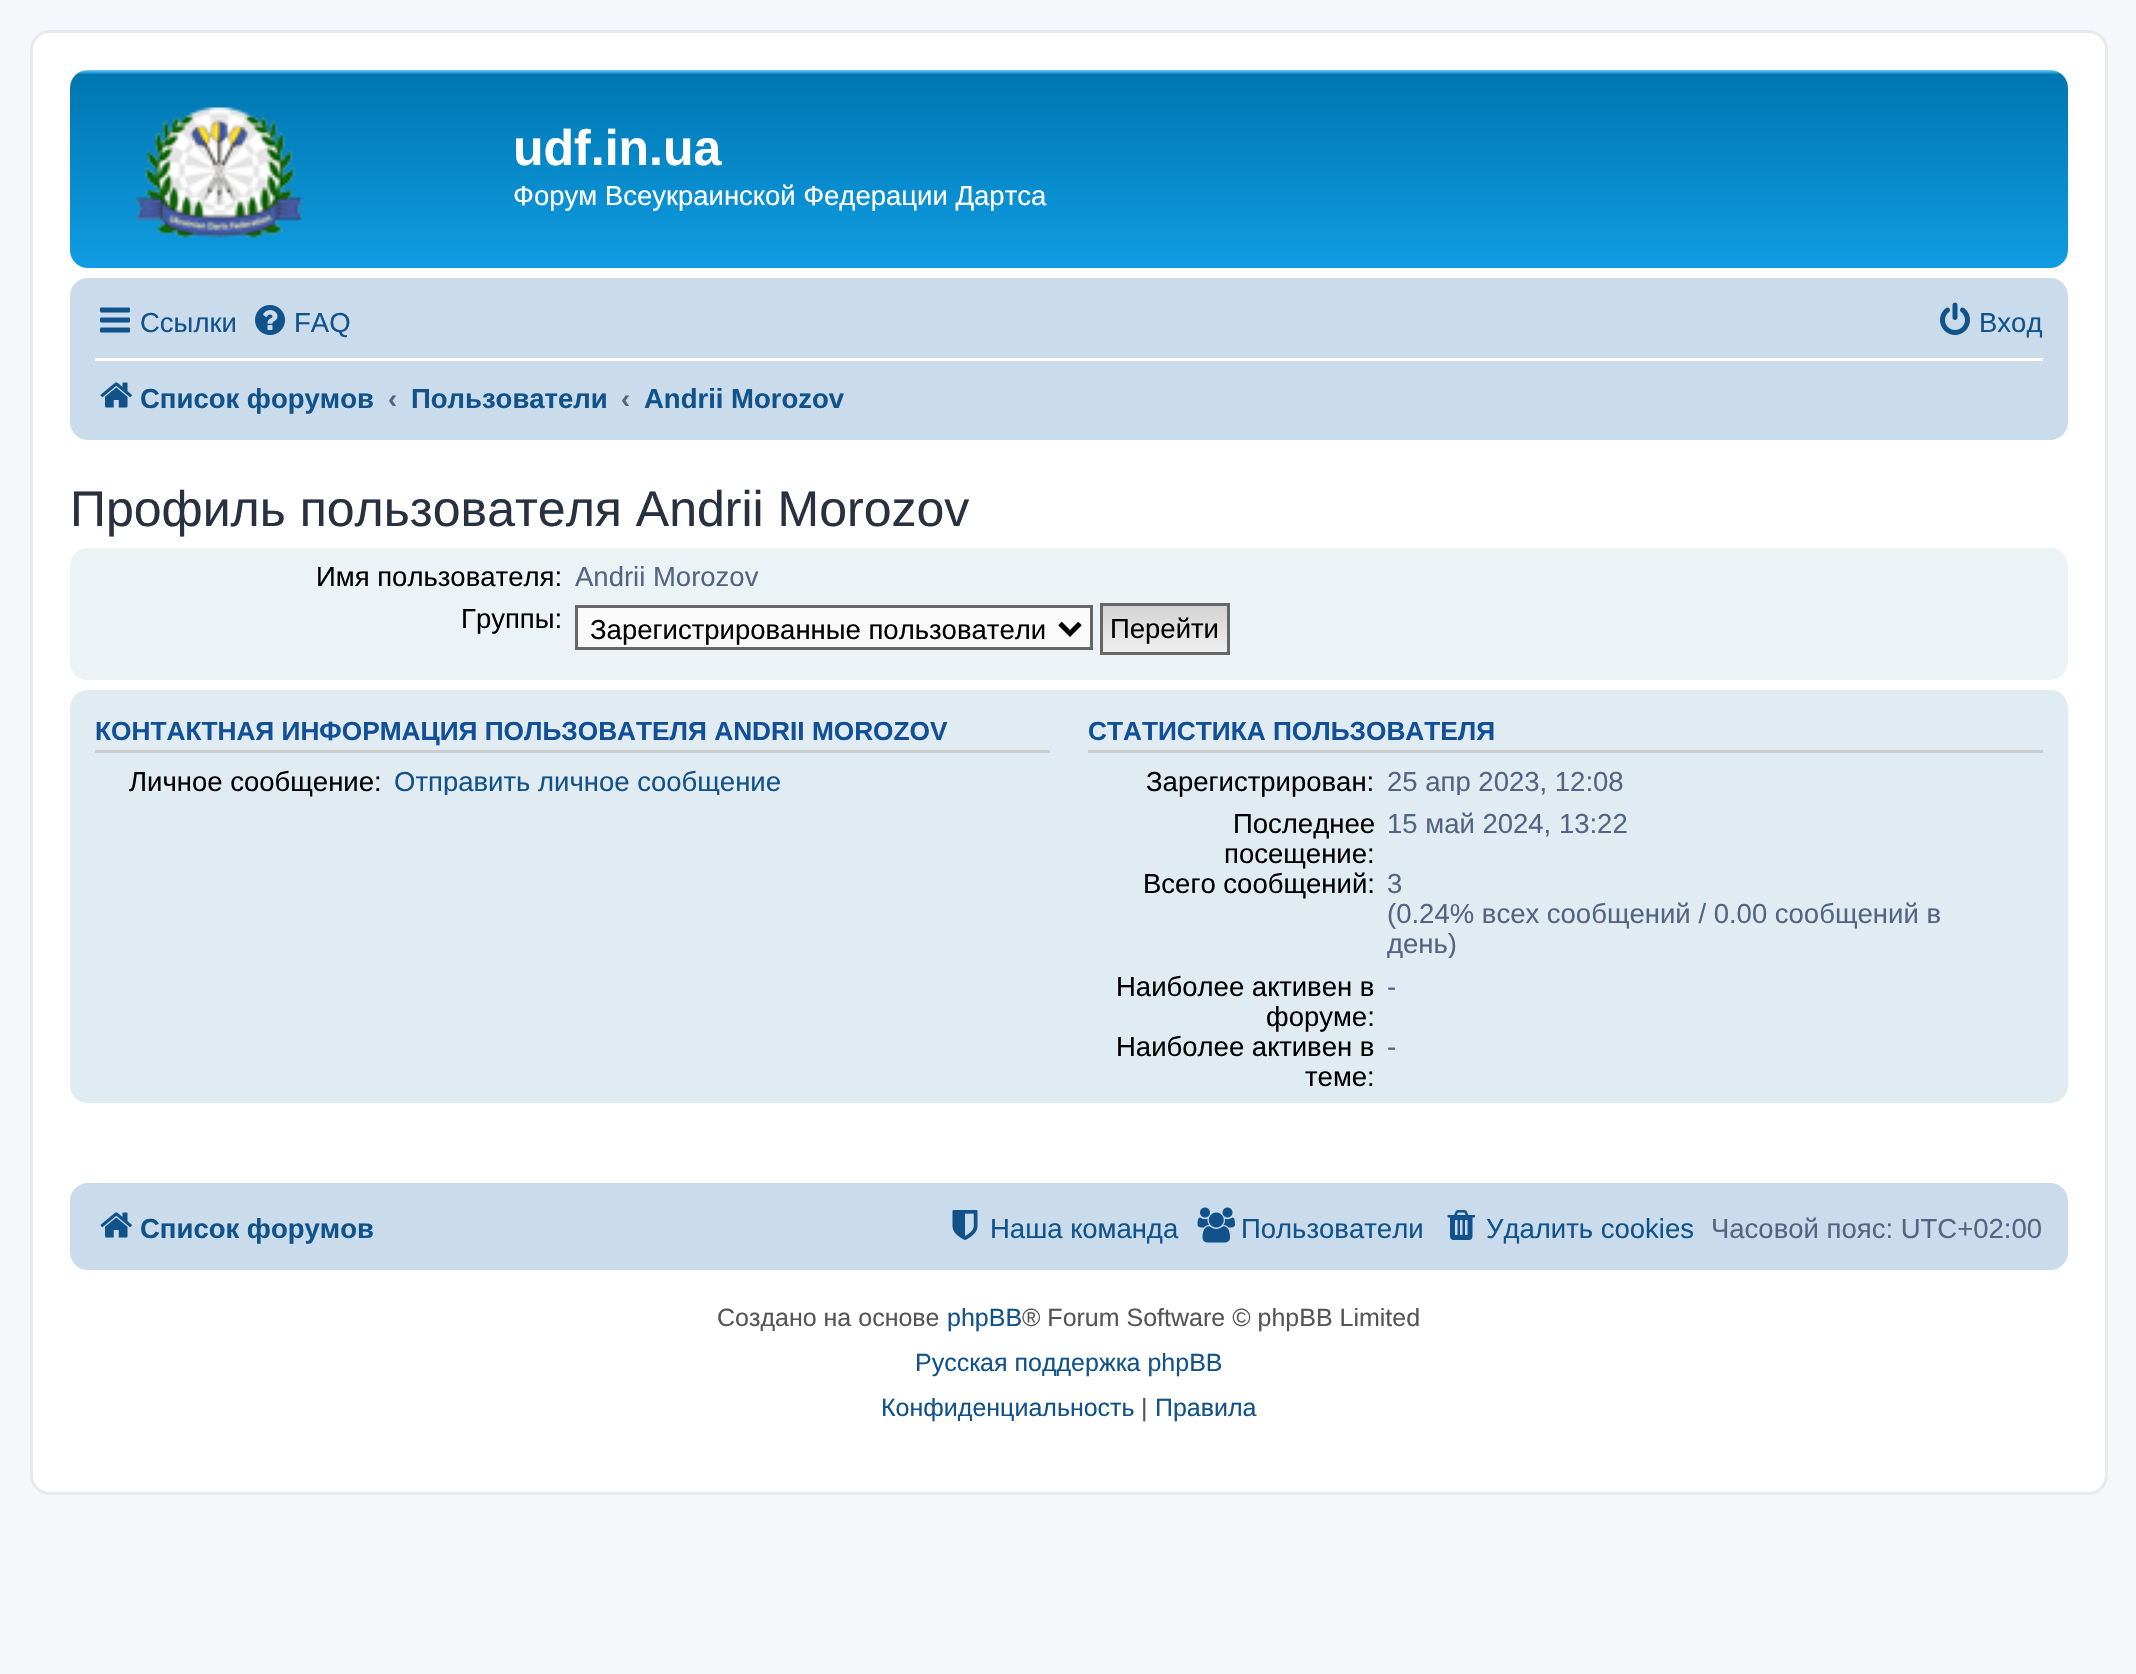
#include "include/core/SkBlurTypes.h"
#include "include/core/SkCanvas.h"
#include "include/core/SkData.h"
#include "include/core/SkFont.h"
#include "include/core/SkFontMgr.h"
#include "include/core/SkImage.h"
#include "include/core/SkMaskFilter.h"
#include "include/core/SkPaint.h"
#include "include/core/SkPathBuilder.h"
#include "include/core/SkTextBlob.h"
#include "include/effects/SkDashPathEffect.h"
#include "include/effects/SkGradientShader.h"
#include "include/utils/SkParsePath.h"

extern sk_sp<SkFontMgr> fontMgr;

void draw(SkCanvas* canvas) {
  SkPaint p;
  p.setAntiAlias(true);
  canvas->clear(SkColorSetRGB(245, 247, 250));
  p.setColor(SK_ColorWHITE);
  canvas->drawRoundRect(SkRect::MakeLTRB(31.5f, 31.5f, 2106.5f, 1493.5f), 18.5f, 18.5f, p);
  p.setStyle(SkPaint::kStroke_Style);
  p.setStrokeWidth(3);
  p.setColor(SkColorSetRGB(230, 233, 237));
  canvas->drawRoundRect(SkRect::MakeLTRB(31.5f, 31.5f, 2106.5f, 1493.5f), 18.5f, 18.5f, p);
  p.setStyle(SkPaint::kFill_Style);
  {
    const SkColor colors[] = {SkColorSetRGB(106, 206, 255), SkColorSetRGB(0, 118, 177), SkColorSetRGB(18, 163, 235)};
    const float stops[] = {0, 0.02f, 1};
    const SkPoint ends[] = {{1069, 70}, {1069, 300}};
    p.setShader(SkGradientShader::MakeLinear(ends, colors, stops, 3, SkTileMode::kClamp));
    p.setAlpha(255);
  }
  canvas->drawRoundRect(SkRect::MakeLTRB(70, 70, 2068, 268), 18, 18, p);
  canvas->drawImageRect(SkImages::DeferredFromEncodedData(SkData::MakeFromFileName("images/1.png")), SkRect::MakeLTRB(134, 107, 304, 238), SkSamplingOptions());
  p.setShader(nullptr);
  p.setColor(SkColorSetRGB(202, 220, 235));
  canvas->drawRoundRect(SkRect::MakeLTRB(70, 278, 2068, 440), 18, 18, p);
  canvas->drawImageRect(SkImages::DeferredFromEncodedData(SkData::MakeFromFileName("images/2.png")), SkRect::MakeLTRB(100, 307, 130, 333), SkSamplingOptions());
  canvas->drawImageRect(SkImages::DeferredFromEncodedData(SkData::MakeFromFileName("images/3.png")), SkRect::MakeLTRB(255, 305, 285, 335), SkSamplingOptions());
  canvas->drawImageRect(SkImages::DeferredFromEncodedData(SkData::MakeFromFileName("images/4.png")), SkRect::MakeLTRB(1940, 302, 1970, 335), SkSamplingOptions());
  p.setColor(SK_ColorWHITE);
  canvas->drawRect(SkRect::MakeLTRB(95, 358, 2043, 361), p);
  canvas->drawImageRect(SkImages::DeferredFromEncodedData(SkData::MakeFromFileName("images/5.png")), SkRect::MakeLTRB(100, 382, 132, 408), SkSamplingOptions());
  p.setColor(SkColorSetRGB(236, 243, 247));
  canvas->drawRoundRect(SkRect::MakeLTRB(70, 548, 2068, 680), 18, 18, p);
  p.setColor(SkColorSetRGB(250, 250, 250));
  canvas->drawRect(SkRect::MakeLTRB(576.5f, 606.5f, 1091.5f, 648.5f), p);
  p.setStyle(SkPaint::kStroke_Style);
  p.setColor(SkColorSetRGB(102, 102, 102));
  canvas->drawRect(SkRect::MakeLTRB(576.5f, 606.5f, 1091.5f, 648.5f), p);
  p.setStrokeWidth(5);
  p.setColor(SK_ColorBLACK);
  canvas->drawPath(SkPathBuilder().moveTo(1060, 623.5f).lineTo(1070, 633.5f).lineTo(1080, 623.5f).detach(), p);
  p.setStyle(SkPaint::kFill_Style);
  {
    const SkColor colors[] = {SkColorSetRGB(210, 210, 210), SkColorSetRGB(239, 239, 239)};
    const float stops[] = {0, 1};
    const SkPoint ends[] = {{1165, 605}, {1165, 653}};
    p.setShader(SkGradientShader::MakeLinear(ends, colors, stops, 2, SkTileMode::kClamp));
    p.setAlpha(255);
  }
  canvas->drawRect(SkRect::MakeLTRB(1103, 606, 1227, 652), p);
  p.setStyle(SkPaint::kStroke_Style);
  p.setStrokeWidth(3);
  p.setShader(nullptr);
  p.setColor(SkColorSetRGB(102, 102, 102));
  canvas->drawRect(SkRect::MakeLTRB(1101.5f, 604.5f, 1228.5f, 653.5f), p);
  p.setStyle(SkPaint::kFill_Style);
  p.setColor(SkColorSetRGB(225, 235, 242));
  canvas->drawRoundRect(SkRect::MakeLTRB(70, 690, 2068, 1103), 18, 18, p);
  p.setColor(SkColorSetRGB(204, 204, 204));
  canvas->drawRect(SkRect::MakeLTRB(95, 750, 1050, 753), p);
  canvas->drawRect(SkRect::MakeLTRB(1088, 750, 2043, 753), p);
  p.setColor(SkColorSetRGB(202, 220, 235));
  canvas->drawRoundRect(SkRect::MakeLTRB(70, 1183, 2068, 1270), 18, 18, p);
  canvas->drawImageRect(SkImages::DeferredFromEncodedData(SkData::MakeFromFileName("images/5.png")), SkRect::MakeLTRB(100, 1212, 132, 1238), SkSamplingOptions());
  canvas->drawImageRect(SkImages::DeferredFromEncodedData(SkData::MakeFromFileName("images/6.png")), SkRect::MakeLTRB(952, 1210, 978, 1240), SkSamplingOptions());
  canvas->drawImageRect(SkImages::DeferredFromEncodedData(SkData::MakeFromFileName("images/7.png")), SkRect::MakeLTRB(1197, 1207, 1235, 1243), SkSamplingOptions());
  canvas->drawImageRect(SkImages::DeferredFromEncodedData(SkData::MakeFromFileName("images/8.png")), SkRect::MakeLTRB(1447, 1210, 1475, 1240), SkSamplingOptions());
  SkFont font1(fontMgr->matchFamilyStyle("Liberation Sans", SkFontStyle::Bold()), 50);
  font1.setSubpixel(true);
  p.setColor(SK_ColorWHITE);
  canvas->drawString("udf.in.ua", 513, 165, font1, p);
  SkFont font2(fontMgr->matchFamilyStyle("Liberation Sans", SkFontStyle::Normal()), 27.5f);
  font2.setSubpixel(true);
  canvas->drawString("Форум Всеукраинской Федерации Дартса", 513, 205, font2, p);
  p.setColor(SkColorSetRGB(16, 82, 137));
  canvas->drawString("Ссылки", 140, 332, font2, p);
  canvas->drawString("FAQ", 294, 332, font2, p);
  canvas->drawString("Вход", 1979, 332, font2, p);
  SkFont font3(fontMgr->matchFamilyStyle("Liberation Sans", SkFontStyle::Bold()), 27.5f);
  font3.setSubpixel(true);
  canvas->drawString("Список форумов", 140, 408, font3, p);
  p.setColor(SkColorSetRGB(83, 100, 130));
  canvas->drawString("‹", 388, 408, font3, p);
  p.setColor(SkColorSetRGB(16, 82, 137));
  canvas->drawString("Пользователи", 411, 408, font3, p);
  p.setColor(SkColorSetRGB(83, 100, 130));
  canvas->drawString("‹", 621, 408, font3, p);
  p.setColor(SkColorSetRGB(16, 82, 137));
  canvas->drawString("Andrii Morozov", 644, 408, font3, p);
  SkFont font4(fontMgr->matchFamilyStyle("Liberation Sans", SkFontStyle::Normal()), 50);
  font4.setSubpixel(true);
  p.setColor(SkColorSetRGB(40, 49, 63));
  canvas->drawString("Профиль пользователя Andrii Morozov", 70, 526, font4, p);
  p.setColor(SK_ColorBLACK);
  canvas->drawString("Имя пользователя:", 316, 586, font2, p);
  p.setColor(SkColorSetRGB(83, 100, 130));
  canvas->drawString("Andrii Morozov", 575, 586, font2, p);
  p.setColor(SK_ColorBLACK);
  canvas->drawString("Группы:", 461, 628, font2, p);
  canvas->drawString("Зарегистрированные пользователи", 590, 639, font2, p);
  canvas->drawString("Перейти", 1110, 638, font2, p);
  SkFont font5(fontMgr->matchFamilyStyle("Liberation Sans", SkFontStyle::Bold()), 26.25f);
  font5.setSubpixel(true);
  p.setColor(SkColorSetRGB(17, 80, 152));
  canvas->drawString("КОНТАКТНАЯ ИНФОРМАЦИЯ ПОЛЬЗОВАТЕЛЯ ANDRII MOROZOV", 95, 740, font5, p);
  p.setColor(SK_ColorBLACK);
  canvas->drawString("Личное сообщение:", 129, 791, font2, p);
  canvas->save();
  canvas->clipRect(SkRect::MakeLTRB(383, 765, 1015, 795));
  p.setColor(SkColorSetRGB(16, 82, 137));
  canvas->drawString("Отправить личное сообщение", 394, 791, font2, p);
  canvas->restore();
  p.setColor(SkColorSetRGB(17, 80, 152));
  canvas->drawString("СТАТИСТИКА ПОЛЬЗОВАТЕЛЯ", 1088, 740, font5, p);
  p.setColor(SK_ColorBLACK);
  canvas->drawString("Зарегистрирован:", 1146, 791, font2, p);
  canvas->save();
  canvas->clipRect(SkRect::MakeLTRB(1375, 765, 2008, 795));
  p.setColor(SkColorSetRGB(83, 100, 130));
  canvas->drawString("25 апр 2023, 12:08", 1387, 791, font2, p);
  canvas->restore();
  p.setColor(SK_ColorBLACK);
  canvas->drawString("Последнее", 1233, 833, font2, p);
  canvas->drawString("посещение:", 1224, 863, font2, p);
  p.setColor(SkColorSetRGB(83, 100, 130));
  canvas->drawString("15 май 2024, 13:22", 1387, 833, font2, p);
  p.setColor(SK_ColorBLACK);
  canvas->drawString("Всего сообщений:", 1143, 893, font2, p);
  p.setColor(SkColorSetRGB(83, 100, 130));
  canvas->drawString("3", 1387, 893, font2, p);
  canvas->drawString("(0.24% всех сообщений / 0.00 сообщений в", 1387, 923, font2, p);
  canvas->save();
  canvas->clipRect(SkRect::MakeLTRB(1375, 868, 2008, 958));
  canvas->drawString("день)", 1387, 953, font2, p);
  canvas->restore();
  p.setColor(SK_ColorBLACK);
  canvas->drawString("Наиболее активен в", 1116, 996, font2, p);
  canvas->drawString("форуме:", 1266, 1026, font2, p);
  p.setColor(SkColorSetRGB(83, 100, 130));
  canvas->drawString("-", 1387, 996, font2, p);
  p.setColor(SK_ColorBLACK);
  canvas->drawString("Наиболее активен в", 1116, 1056, font2, p);
  canvas->drawString("теме:", 1305, 1086, font2, p);
  p.setColor(SkColorSetRGB(83, 100, 130));
  canvas->drawString("-", 1387, 1056, font2, p);
  p.setColor(SkColorSetRGB(16, 82, 137));
  canvas->drawString("Список форумов", 140, 1238, font3, p);
  canvas->drawString("Наша команда", 990, 1238, font2, p);
  canvas->drawString("Пользователи", 1241, 1238, font2, p);
  canvas->drawString("Удалить cookies", 1486, 1238, font2, p);
  p.setColor(SkColorSetRGB(83, 100, 130));
  canvas->drawString("Часовой пояс: UTC+02:00", 1711, 1238, font2, p);
  SkFont font6(fontMgr->matchFamilyStyle("Liberation Sans", SkFontStyle::Normal()), 25);
  font6.setSubpixel(true);
  p.setColor(SkColorSetRGB(85, 85, 85));
  canvas->drawString("Создано на основе", 717, 1326, font6, p);
  p.setColor(SkColorSetRGB(16, 82, 137));
  canvas->drawString("phpBB", 947, 1326, font6, p);
  p.setColor(SkColorSetRGB(85, 85, 85));
  canvas->drawString("® Forum Software © phpBB Limited", 1022, 1326, font6, p);
  p.setColor(SkColorSetRGB(16, 82, 137));
  canvas->drawString("Русская поддержка phpBB", 915, 1371, font6, p);
  canvas->drawString("Конфиденциальность", 881, 1416, font6, p);
  p.setColor(SkColorSetRGB(85, 85, 85));
  canvas->drawString("|", 1141, 1416, font6, p);
  p.setColor(SkColorSetRGB(16, 82, 137));
  canvas->drawString("Правила", 1155, 1416, font6, p);
}
